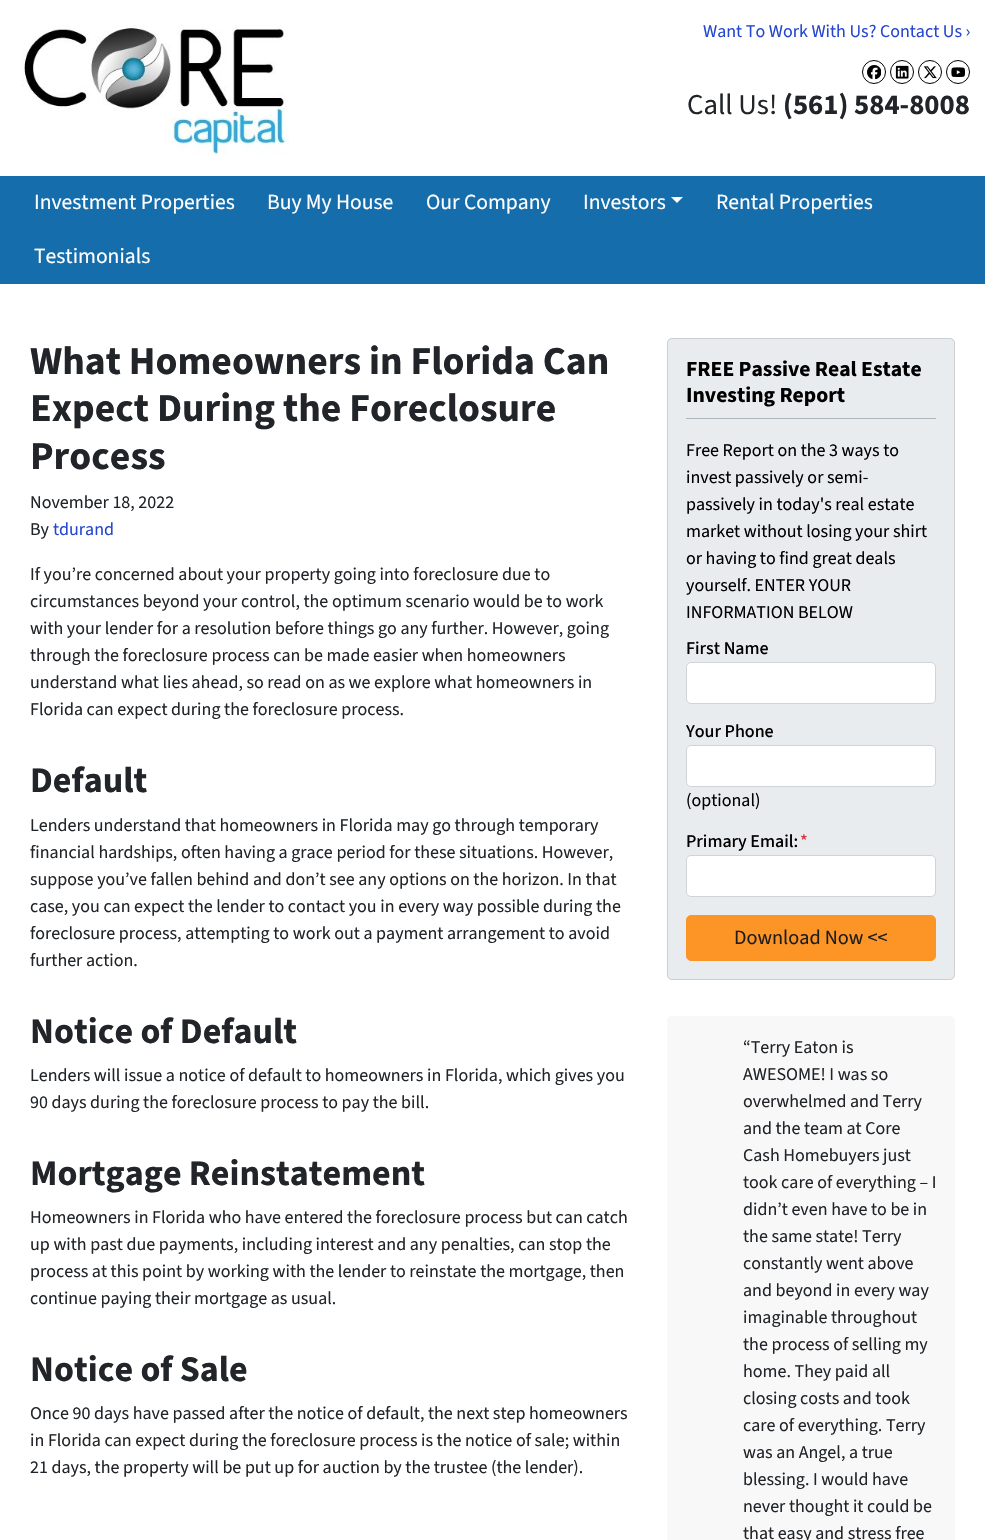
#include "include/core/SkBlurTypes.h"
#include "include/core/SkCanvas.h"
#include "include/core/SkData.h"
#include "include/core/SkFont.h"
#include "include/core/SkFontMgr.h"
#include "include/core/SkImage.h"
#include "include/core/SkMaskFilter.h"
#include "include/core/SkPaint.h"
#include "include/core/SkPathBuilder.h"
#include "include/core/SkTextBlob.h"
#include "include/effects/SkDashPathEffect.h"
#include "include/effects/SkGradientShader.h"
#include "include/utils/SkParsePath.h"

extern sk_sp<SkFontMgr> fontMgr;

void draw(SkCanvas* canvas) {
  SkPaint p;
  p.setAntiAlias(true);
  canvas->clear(SK_ColorWHITE);
  canvas->drawImageRect(SkImages::DeferredFromEncodedData(SkData::MakeFromFileName("images/1.png")), SkRect::MakeLTRB(21, 25, 289, 155), SkSamplingOptions());
  p.setStyle(SkPaint::kStroke_Style);
  p.setStrokeWidth(1);
  p.setColor(SK_ColorBLACK);
  canvas->drawCircle(874, 72, 11.5f, p);
  canvas->drawImageRect(SkImages::DeferredFromEncodedData(SkData::MakeFromFileName("images/2.png")), SkRect::MakeLTRB(867, 65, 881, 79), SkSamplingOptions());
  canvas->drawCircle(902, 72, 11.5f, p);
  canvas->drawImageRect(SkImages::DeferredFromEncodedData(SkData::MakeFromFileName("images/3.png")), SkRect::MakeLTRB(895, 65, 909, 79), SkSamplingOptions());
  canvas->drawCircle(930, 72, 11.5f, p);
  canvas->drawImageRect(SkImages::DeferredFromEncodedData(SkData::MakeFromFileName("images/4.png")), SkRect::MakeLTRB(923, 66, 937, 79), SkSamplingOptions());
  canvas->drawCircle(958, 72, 11.5f, p);
  canvas->drawImageRect(SkImages::DeferredFromEncodedData(SkData::MakeFromFileName("images/5.png")), SkRect::MakeLTRB(951, 67, 965, 77), SkSamplingOptions());
  p.setStyle(SkPaint::kFill_Style);
  p.setColor(SkColorSetRGB(22, 109, 171));
  canvas->drawRect(SkRect::MakeLTRB(0, 176, 985, 284), p);
  p.setColor(SK_ColorWHITE);
  canvas->drawPath(SkPathBuilder().moveTo(671, 197).lineTo(683, 197).lineTo(677, 203).close().detach(), p);
  p.setColor(SkColorSetRGB(233, 236, 239));
  canvas->drawRoundRect(SkRect::MakeLTRB(667, 338, 955, 980), 5, 5, p);
  p.setStyle(SkPaint::kStroke_Style);
  p.setColor(SkColorSetARGB(31, 0, 0, 0));
  canvas->drawRoundRect(SkRect::MakeLTRB(667.5f, 338.5f, 954.5f, 979.5f), 4.5f, 4.5f, p);
  p.setStyle(SkPaint::kFill_Style);
  p.setColor(SkColorSetRGB(173, 181, 189));
  canvas->drawRect(SkRect::MakeLTRB(686, 418, 936, 419), p);
  p.setColor(SK_ColorWHITE);
  canvas->drawRoundRect(SkRect::MakeLTRB(686.5f, 662.5f, 935.5f, 703.5f), 4.5f, 4.5f, p);
  p.setStyle(SkPaint::kStroke_Style);
  p.setColor(SkColorSetRGB(206, 212, 218));
  canvas->drawRoundRect(SkRect::MakeLTRB(686.5f, 662.5f, 935.5f, 703.5f), 4.5f, 4.5f, p);
  p.setStyle(SkPaint::kFill_Style);
  p.setColor(SK_ColorWHITE);
  canvas->drawRoundRect(SkRect::MakeLTRB(686.5f, 745.5f, 935.5f, 786.5f), 4.5f, 4.5f, p);
  p.setStyle(SkPaint::kStroke_Style);
  p.setColor(SkColorSetRGB(206, 212, 218));
  canvas->drawRoundRect(SkRect::MakeLTRB(686.5f, 745.5f, 935.5f, 786.5f), 4.5f, 4.5f, p);
  p.setStyle(SkPaint::kFill_Style);
  p.setColor(SK_ColorWHITE);
  canvas->drawRoundRect(SkRect::MakeLTRB(686.5f, 855.5f, 935.5f, 896.5f), 4.5f, 4.5f, p);
  p.setStyle(SkPaint::kStroke_Style);
  p.setColor(SkColorSetRGB(206, 212, 218));
  canvas->drawRoundRect(SkRect::MakeLTRB(686.5f, 855.5f, 935.5f, 896.5f), 4.5f, 4.5f, p);
  p.setStyle(SkPaint::kFill_Style);
  p.setColor(SkColorSetRGB(252, 148, 38));
  canvas->drawRoundRect(SkRect::MakeLTRB(686.5f, 915.5f, 935.5f, 960.5f), 4.5f, 4.5f, p);
  p.setStyle(SkPaint::kStroke_Style);
  canvas->drawRoundRect(SkRect::MakeLTRB(686.5f, 915.5f, 935.5f, 960.5f), 4.5f, 4.5f, p);
  p.setStyle(SkPaint::kFill_Style);
  p.setColor(SkColorSetRGB(248, 248, 248));
  canvas->drawRoundRect(SkRect::MakeLTRB(667, 1016, 955, 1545), 5, 5, p);
  SkFont font1(fontMgr->matchFamilyStyle("Source Sans 3", SkFontStyle::Normal()), 18);
  font1.setSubpixel(true);
  p.setColor(SkColorSetRGB(37, 71, 207));
  canvas->drawString("Want To Work With Us? Contact Us ›", 703, 37, font1, p);
  SkFont font2(fontMgr->matchFamilyStyle("Source Sans 3", SkFontStyle::Normal()), 28.75f);
  font2.setSubpixel(true);
  p.setColor(SkColorSetRGB(33, 37, 41));
  canvas->drawString("Call Us!", 687, 114, font2, p);
  SkFont font3(fontMgr->matchFamilyStyle("Source Sans 3", SkFontStyle::Bold()), 28.75f);
  font3.setSubpixel(true);
  canvas->drawString("(561) 584-8008", 783, 114, font3, p);
  SkFont font4(fontMgr->matchFamilyStyle("Source Sans 3", SkFontStyle::Normal()), 21.6f);
  font4.setSubpixel(true);
  p.setColor(SK_ColorWHITE);
  canvas->drawString("Investment Properties", 34, 209, font4, p);
  canvas->drawString("Buy My House", 267, 209, font4, p);
  canvas->drawString("Our Company", 426, 209, font4, p);
  canvas->drawString("Investors", 583, 209, font4, p);
  canvas->drawString("Rental Properties", 716, 209, font4, p);
  canvas->drawString("Testimonials", 34, 263, font4, p);
  SkFont font5(fontMgr->matchFamilyStyle("Source Sans 3", SkFontStyle::Bold()), 39.6f);
  font5.setSubpixel(true);
  p.setColor(SkColorSetRGB(33, 37, 41));
  canvas->drawString("What Homeowners in Florida Can", 30, 374, font5, p);
  canvas->drawString("Expect During the Foreclosure", 30, 421, font5, p);
  canvas->drawString("Process", 30, 469, font5, p);
  canvas->drawString("November 18, 2022", 30, 508, font1, p);
  canvas->drawString("By", 30, 535, font1, p);
  p.setColor(SkColorSetRGB(37, 71, 207));
  canvas->drawString("tdurand", 53, 535, font1, p);
  p.setColor(SkColorSetRGB(33, 37, 41));
  canvas->drawString("If you’re concerned about your property going into foreclosure due to", 30, 580, font1, p);
  canvas->drawString("circumstances beyond your control, the optimum scenario would be to work", 30, 607, font1, p);
  canvas->drawString("with your lender for a resolution before things go any further. However, going", 30, 634, font1, p);
  canvas->drawString("through the foreclosure process can be made easier when homeowners", 30, 661, font1, p);
  canvas->drawString("understand what lies ahead, so read on as we explore what homeowners in", 30, 688, font1, p);
  canvas->drawString("Florida can expect during the foreclosure process.", 30, 715, font1, p);
  SkFont font6(fontMgr->matchFamilyStyle("Source Sans 3", SkFontStyle::Bold()), 36);
  font6.setSubpixel(true);
  canvas->drawString("Default", 30, 792, font6, p);
  canvas->drawString("Lenders understand that homeowners in Florida may go through temporary", 30, 831, font1, p);
  canvas->drawString("financial hardships, often having a grace period for these situations. However,", 30, 858, font1, p);
  canvas->drawString("suppose you’ve fallen behind and don’t see any options on the horizon. In that", 30, 885, font1, p);
  canvas->drawString("case, you can expect the lender to contact you in every way possible during the", 30, 912, font1, p);
  canvas->drawString("foreclosure process, attempting to work out a payment arrangement to avoid", 30, 939, font1, p);
  canvas->drawString("further action.", 30, 966, font1, p);
  canvas->drawString("Notice of Default", 30, 1043, font6, p);
  canvas->drawString("Lenders will issue a notice of default to homeowners in Florida, which gives you", 30, 1081, font1, p);
  canvas->drawString("90 days during the foreclosure process to pay the bill.", 30, 1108, font1, p);
  canvas->drawString("Mortgage Reinstatement", 30, 1185, font6, p);
  canvas->drawString("Homeowners in Florida who have entered the foreclosure process but can catch", 30, 1223, font1, p);
  canvas->drawString("up with past due payments, including interest and any penalties, can stop the", 30, 1250, font1, p);
  canvas->drawString("process at this point by working with the lender to reinstate the mortgage, then", 30, 1277, font1, p);
  canvas->drawString("continue paying their mortgage as usual.", 30, 1304, font1, p);
  canvas->drawString("Notice of Sale", 30, 1381, font6, p);
  canvas->drawString("Once 90 days have passed after the notice of default, the next step homeowners", 30, 1419, font1, p);
  canvas->drawString("in Florida can expect during the foreclosure process is the notice of sale; within", 30, 1446, font1, p);
  canvas->drawString("21 days, the property will be put up for auction by the trustee (the lender).", 30, 1473, font1, p);
  SkFont font7(fontMgr->matchFamilyStyle("Source Sans 3", SkFontStyle::Bold()), 21.6f);
  font7.setSubpixel(true);
  p.setColor(SK_ColorBLACK);
  canvas->drawString("FREE Passive Real Estate", 686, 376, font7, p);
  canvas->drawString("Investing Report", 686, 402, font7, p);
  canvas->drawString("Free Report on the 3 ways to", 686, 456, font1, p);
  canvas->drawString("invest passively or semi-", 686, 483, font1, p);
  canvas->drawString("passively in today's real estate", 686, 510, font1, p);
  canvas->drawString("market without losing your shirt", 686, 537, font1, p);
  canvas->drawString("or having to find great deals", 686, 564, font1, p);
  canvas->drawString("yourself. ENTER YOUR", 686, 591, font1, p);
  canvas->drawString("INFORMATION BELOW", 686, 618, font1, p);
  SkFont font8(fontMgr->matchFamilyStyle("Source Sans 3", SkFontStyle(500, SkFontStyle::kNormal_Width, SkFontStyle::kUpright_Slant)), 18);
  font8.setSubpixel(true);
  canvas->drawString("First Name", 686, 654, font8, p);
  canvas->drawString("Your Phone", 686, 737, font8, p);
  canvas->drawString("(optional)", 686, 806, font1, p);
  canvas->drawString("Primary Email:", 686, 847, font8, p);
  p.setColor(SkColorSetRGB(220, 53, 69));
  canvas->drawString("*", 800, 847, font8, p);
  SkFont font9(fontMgr->matchFamilyStyle("Source Sans 3", SkFontStyle::Normal()), 20.25f);
  font9.setSubpixel(true);
  p.setColor(SkColorSetRGB(29, 29, 29));
  canvas->drawString("Download Now <<", 734, 944, font9, p);
  p.setColor(SkColorSetRGB(33, 37, 41));
  canvas->drawString("“Terry Eaton is", 743, 1053, font1, p);
  canvas->drawString("AWESOME! I was so", 743, 1080, font1, p);
  canvas->drawString("overwhelmed and Terry", 743, 1107, font1, p);
  canvas->drawString("and the team at Core", 743, 1134, font1, p);
  canvas->drawString("Cash Homebuyers just", 743, 1161, font1, p);
  canvas->drawString("took care of everything – I", 743, 1188, font1, p);
  canvas->drawString("didn’t even have to be in", 743, 1215, font1, p);
  canvas->drawString("the same state! Terry", 743, 1242, font1, p);
  canvas->drawString("constantly went above", 743, 1269, font1, p);
  canvas->drawString("and beyond in every way", 743, 1296, font1, p);
  canvas->drawString("imaginable throughout", 743, 1323, font1, p);
  canvas->drawString("the process of selling my", 743, 1350, font1, p);
  canvas->drawString("home. They paid all", 743, 1377, font1, p);
  canvas->drawString("closing costs and took", 743, 1404, font1, p);
  canvas->drawString("care of everything. Terry", 743, 1431, font1, p);
  canvas->drawString("was an Angel, a true", 743, 1458, font1, p);
  canvas->drawString("blessing. I would have", 743, 1485, font1, p);
  canvas->drawString("never thought it could be", 743, 1512, font1, p);
  canvas->drawString("that easy and stress free", 743, 1539, font1, p);
}
